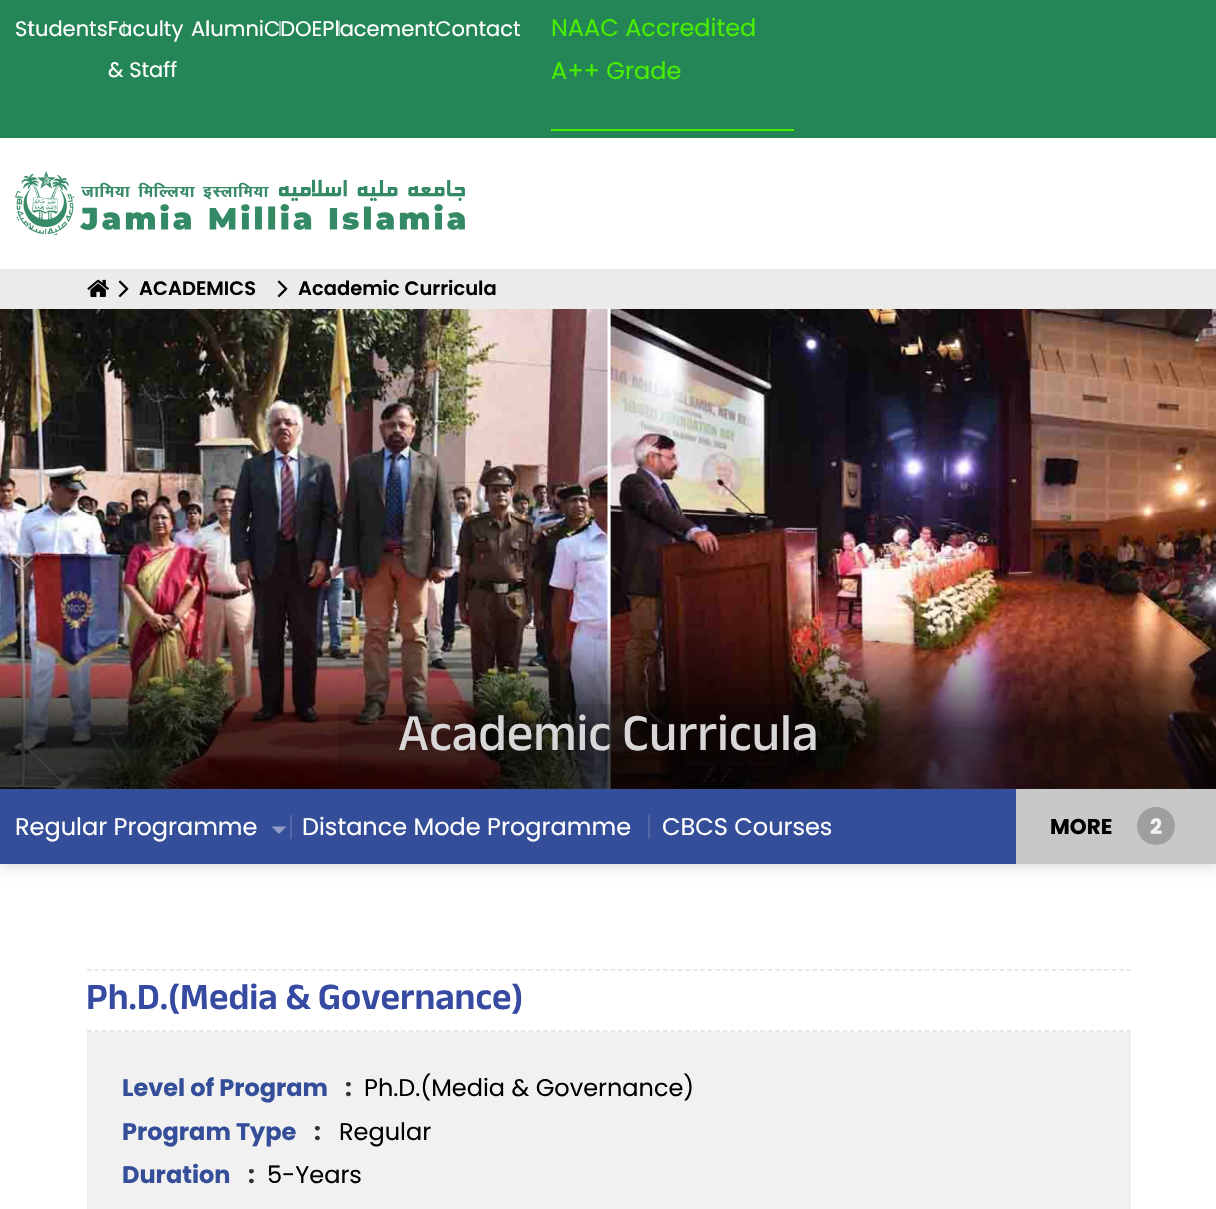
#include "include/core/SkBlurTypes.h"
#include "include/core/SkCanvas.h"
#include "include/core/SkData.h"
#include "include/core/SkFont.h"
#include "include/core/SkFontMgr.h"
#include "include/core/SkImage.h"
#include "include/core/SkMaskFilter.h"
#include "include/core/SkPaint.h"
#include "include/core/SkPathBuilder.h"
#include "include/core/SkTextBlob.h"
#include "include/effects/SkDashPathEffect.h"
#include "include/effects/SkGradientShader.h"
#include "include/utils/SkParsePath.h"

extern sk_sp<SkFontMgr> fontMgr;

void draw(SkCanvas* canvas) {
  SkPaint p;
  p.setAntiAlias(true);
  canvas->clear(SK_ColorWHITE);
  p.setColor(SkColorSetRGB(36, 134, 87));
  canvas->drawRect(SkRect::MakeLTRB(0, 0, 1216, 138), p);
  p.setColor(SkColorSetRGB(72, 237, 0));
  canvas->drawRect(SkRect::MakeLTRB(551, 129, 794, 131), p);
  canvas->drawImageRect(SkImages::DeferredFromEncodedData(SkData::MakeFromFileName("images/1.png")), SkRect::MakeLTRB(15, 171, 465, 236), SkSamplingOptions());
  p.setColor(SkColorSetRGB(235, 235, 235));
  canvas->drawRect(SkRect::MakeLTRB(0, 269, 1216, 309), p);
  canvas->drawImageRect(SkImages::DeferredFromEncodedData(SkData::MakeFromFileName("images/2.png")), SkRect::MakeLTRB(87, 279, 109, 297), SkSamplingOptions());
  canvas->drawImageRect(SkImages::DeferredFromEncodedData(SkData::MakeFromFileName("images/3.png")), SkRect::MakeLTRB(118, 280, 129, 298), SkSamplingOptions());
  canvas->drawImageRect(SkImages::DeferredFromEncodedData(SkData::MakeFromFileName("images/3.png")), SkRect::MakeLTRB(277, 280, 288, 298), SkSamplingOptions());
  p.setColor(SkColorSetARGB(51, 0, 0, 0));
  p.setMaskFilter(SkMaskFilter::MakeBlur(kNormal_SkBlurStyle, 7.5f));
  canvas->drawRect(SkRect::MakeLTRB(0, 789, 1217, 864), p);
  p.setMaskFilter(nullptr);
  canvas->drawImageRect(SkImages::DeferredFromEncodedData(SkData::MakeFromFileName("images/4.png")), SkRect::MakeLTRB(0, 309, 608, 789), SkSamplingOptions());
  canvas->drawImageRect(SkImages::DeferredFromEncodedData(SkData::MakeFromFileName("images/5.png")), SkRect::MakeLTRB(610, 309, 1216, 789), SkSamplingOptions());
  {
    const SkColor colors[] = {SkColorSetARGB(0, 0, 0, 0), SkColorSetARGB(184, 0, 0, 0)};
    const float stops[] = {0.65f, 0.88f};
    const SkPoint ends[] = {{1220, 309}, {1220, 789}};
    p.setShader(SkGradientShader::MakeLinear(ends, colors, stops, 2, SkTileMode::kClamp));
    p.setAlpha(255);
  }
  canvas->drawRect(SkRect::MakeLTRB(0, 624, 1216, 789), p);
  p.setShader(nullptr);
  p.setColor(SkColorSetARGB(33, 0, 0, 0));
  canvas->drawRect(SkRect::MakeLTRB(338, 704, 879, 782), p);
  p.setColor(SkColorSetRGB(53, 78, 153));
  canvas->drawRect(SkRect::MakeLTRB(0, 789, 1016, 864), p);
  p.setColor(SkColorSetRGB(81, 103, 167));
  canvas->drawRect(SkRect::MakeLTRB(290, 815, 292, 839), p);
  p.setColor(SkColorSetRGB(144, 158, 199));
  canvas->drawPath(SkPathBuilder().moveTo(271.5f, 826.5f).lineTo(286.5f, 826.5f).lineTo(279, 834).close().detach(), p);
  p.setColor(SkColorSetRGB(81, 103, 167));
  canvas->drawRect(SkRect::MakeLTRB(648, 815, 650, 839), p);
  p.setColor(SkColorSetRGB(200, 200, 200));
  canvas->drawRect(SkRect::MakeLTRB(1016, 789, 1216, 864), p);
  p.setColor(SkColorSetRGB(159, 159, 159));
  canvas->drawCircle(1156, 826, 19, p);
  p.setStyle(SkPaint::kStroke_Style);
  p.setStrokeWidth(1.5f);
  p.setColor(SkColorSetRGB(225, 225, 225));
  p.setPathEffect(SkDashPathEffect::Make({{4.5f, 2.98f}}, 0));
  canvas->drawPath(SkPathBuilder().moveTo(87, 970).lineTo(1131, 970).detach(), p);
  p.setPathEffect(nullptr);
  p.setPathEffect(SkDashPathEffect::Make({{4.5f, 2.98f}}, 0));
  canvas->drawPath(SkPathBuilder().moveTo(87, 1031).lineTo(1131, 1031).detach(), p);
  p.setPathEffect(nullptr);
  p.setStyle(SkPaint::kFill_Style);
  p.setColor(SkColorSetRGB(241, 241, 241));
  canvas->drawRect(SkRect::MakeLTRB(87, 1032, 1131, 1209), p);
  SkFont font1(fontMgr->matchFamilyStyle("Poppins", SkFontStyle::Normal()), 21);
  font1.setSubpixel(true);
  p.setColor(SK_ColorWHITE);
  canvas->drawString("StudentsFaculty", 15, 36, font1, p);
  p.setColor(SkColorSetARGB(125, 255, 255, 255));
  canvas->drawRect(SkRect::MakeLTRB(30, 21, 32, 36), p);
  p.setColor(SK_ColorWHITE);
  canvas->drawString("AlumniCDOEPlacementContact", 191, 36, font1, p);
  p.setColor(SkColorSetARGB(125, 255, 255, 255));
  canvas->drawRect(SkRect::MakeLTRB(206, 21, 207, 36), p);
  p.setColor(SkColorSetRGB(143, 193, 169));
  canvas->drawRect(SkRect::MakeLTRB(279, 21, 281, 36), p);
  canvas->drawRect(SkRect::MakeLTRB(338, 21, 340, 36), p);
  p.setColor(SkColorSetARGB(125, 255, 255, 255));
  canvas->drawRect(SkRect::MakeLTRB(123, 21, 125, 36), p);
  p.setColor(SK_ColorWHITE);
  canvas->drawString("& Staff", 108, 77, font1, p);
  SkFont font2(fontMgr->matchFamilyStyle("Poppins", SkFontStyle::Normal()), 24);
  font2.setSubpixel(true);
  p.setColor(SkColorSetRGB(72, 237, 0));
  canvas->drawString("NAAC Accredited", 551, 36, font2, p);
  canvas->drawString("A++ Grade", 551, 79, font2, p);
  SkFont font3(fontMgr->matchFamilyStyle("Poppins", SkFontStyle(600, SkFontStyle::kNormal_Width, SkFontStyle::kUpright_Slant)), 19.5f);
  font3.setSubpixel(true);
  p.setColor(SK_ColorBLACK);
  canvas->drawString("ACADEMICS", 139, 295, font3, p);
  canvas->drawString("Academic Curricula", 298, 295, font3, p);
  SkFont font4(fontMgr->matchFamilyStyle("Anek Devanagari", SkFontStyle(500, SkFontStyle::kNormal_Width, SkFontStyle::kUpright_Slant)), 52.5f);
  font4.setSubpixel(true);
  p.setColor(SkColorSetRGB(216, 214, 214));
  canvas->drawString("Academic Curricula", 398, 750, font4, p);
  p.setColor(SK_ColorWHITE);
  canvas->drawString("Regular Programme", 15, 835, font2, p);
  canvas->drawString("Distance Mode Programme", 302, 835, font2, p);
  canvas->drawString("CBCS Courses", 662, 835, font2, p);
  SkFont font5(fontMgr->matchFamilyStyle("Poppins", SkFontStyle::Bold()), 21.5f);
  font5.setSubpixel(true);
  p.setColor(SK_ColorBLACK);
  canvas->drawString("MORE", 1050, 834, font5, p);
  SkFont font6(fontMgr->matchFamilyStyle("Poppins", SkFontStyle::Bold()), 21);
  font6.setSubpixel(true);
  p.setColor(SkColorSetRGB(242, 242, 242));
  canvas->drawString("2", 1150, 834, font6, p);
  SkFont font7(fontMgr->matchFamilyStyle("Anek Devanagari", SkFontStyle(600, SkFontStyle::kNormal_Width, SkFontStyle::kUpright_Slant)), 37.5f);
  font7.setSubpixel(true);
  p.setColor(SkColorSetRGB(54, 74, 161));
  canvas->drawString("Ph.D.(Media & Governance)", 86, 1009, font7, p);
  SkFont font8(fontMgr->matchFamilyStyle("Poppins", SkFontStyle::Bold()), 24);
  font8.setSubpixel(true);
  p.setColor(SkColorSetRGB(53, 78, 153));
  canvas->drawString("Level of Program", 122, 1096, font8, p);
  p.setColor(SkColorSetRGB(51, 51, 51));
  canvas->drawString(":", 345, 1096, font8, p);
  p.setColor(SK_ColorBLACK);
  canvas->drawString("Ph.D.(Media & Governance)", 364, 1096, font2, p);
  p.setColor(SkColorSetRGB(53, 78, 153));
  canvas->drawString("Program Type", 122, 1140, font8, p);
  p.setColor(SkColorSetRGB(51, 51, 51));
  canvas->drawString(":", 314, 1140, font8, p);
  p.setColor(SK_ColorBLACK);
  canvas->drawString("Regular", 339, 1140, font2, p);
  p.setColor(SkColorSetRGB(53, 78, 153));
  canvas->drawString("Duration", 122, 1183, font8, p);
  p.setColor(SkColorSetRGB(51, 51, 51));
  canvas->drawString(":", 248, 1183, font8, p);
  p.setColor(SK_ColorBLACK);
  canvas->drawString("5-Years", 267, 1183, font2, p);
}
